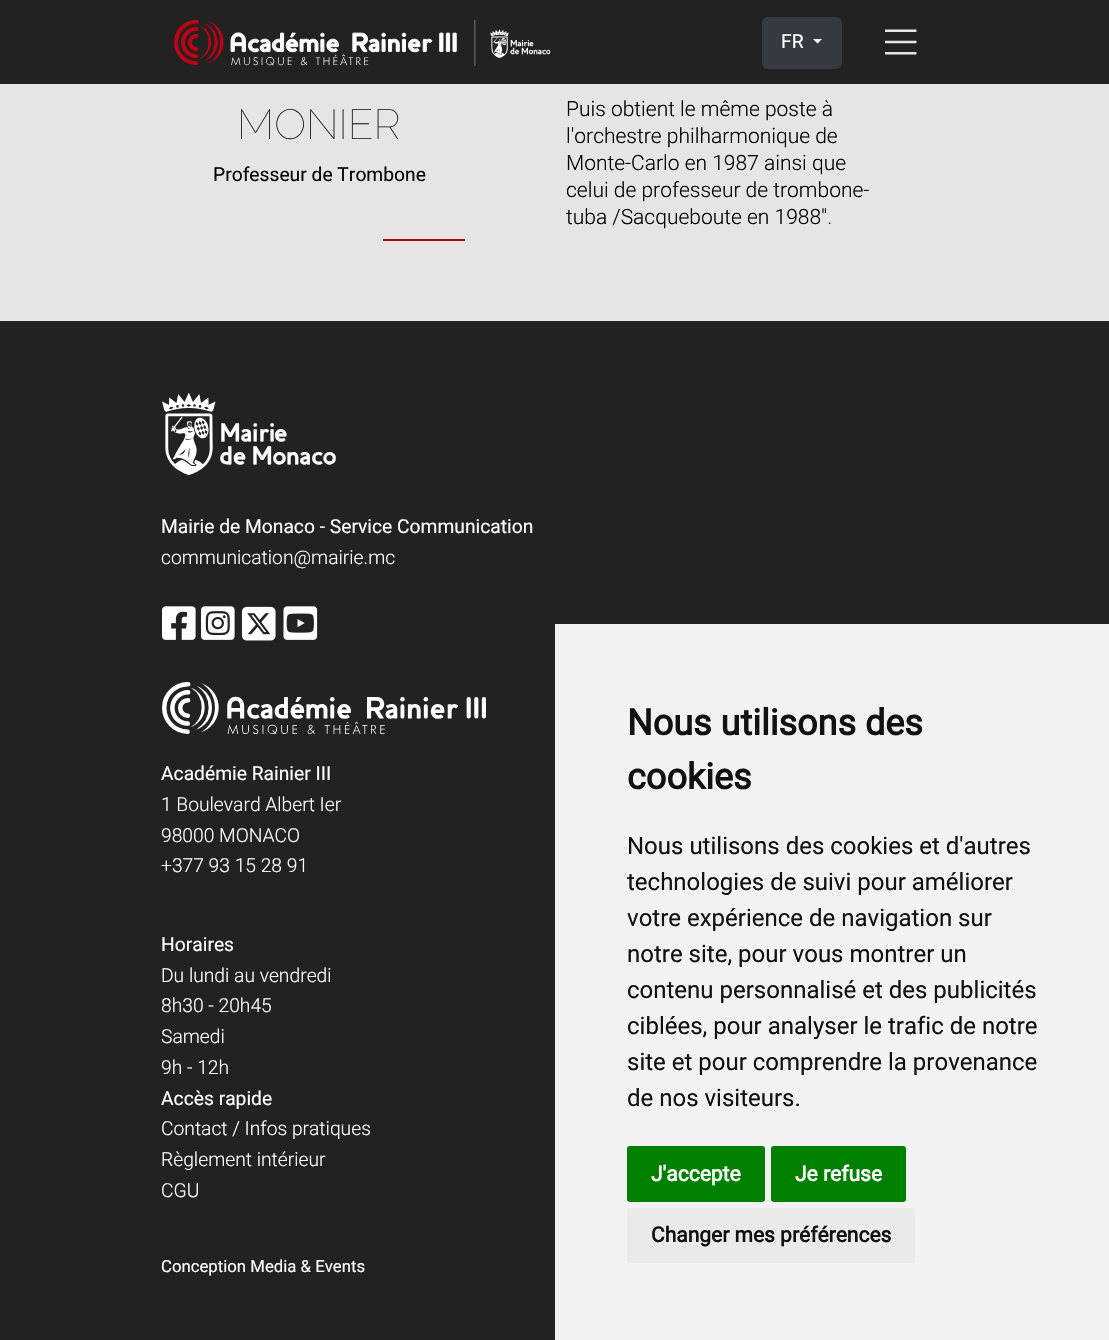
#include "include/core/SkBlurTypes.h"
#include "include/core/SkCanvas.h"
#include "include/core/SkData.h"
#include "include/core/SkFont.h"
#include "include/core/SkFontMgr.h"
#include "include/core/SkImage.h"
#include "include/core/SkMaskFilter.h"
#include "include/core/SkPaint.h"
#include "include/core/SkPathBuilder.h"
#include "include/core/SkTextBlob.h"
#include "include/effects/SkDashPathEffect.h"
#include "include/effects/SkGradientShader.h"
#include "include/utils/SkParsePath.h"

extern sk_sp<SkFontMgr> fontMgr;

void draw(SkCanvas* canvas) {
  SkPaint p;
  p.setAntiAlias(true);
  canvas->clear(SkColorSetRGB(34, 34, 34));
  canvas->drawImageRect(SkImages::DeferredFromEncodedData(SkData::MakeFromFileName("images/1.png")), SkRect::MakeLTRB(174, 20, 551, 66), SkSamplingOptions());
  p.setColor(SkColorSetRGB(52, 58, 64));
  canvas->drawRoundRect(SkRect::MakeLTRB(763, 18, 841, 68), 5, 5, p);
  p.setStyle(SkPaint::kStroke_Style);
  p.setStrokeWidth(2);
  canvas->drawRoundRect(SkRect::MakeLTRB(763, 18, 841, 68), 5, 5, p);
  p.setStyle(SkPaint::kFill_Style);
  p.setColor(SK_ColorWHITE);
  canvas->drawPath(SkPathBuilder().moveTo(813, 39).lineTo(822, 39).lineTo(817.5f, 43.5f).close().detach(), p);
  canvas->drawImageRect(SkImages::DeferredFromEncodedData(SkData::MakeFromFileName("images/2.png")), SkRect::MakeLTRB(885, 29, 917, 55), SkSamplingOptions());
  p.setColor(SkColorSetRGB(229, 229, 229));
  canvas->drawRect(SkRect::MakeLTRB(0, 84, 1109, 321), p);
  p.setColor(SkColorSetRGB(177, 5, 21));
  canvas->drawRect(SkRect::MakeLTRB(383, 239, 465, 241), p);
  canvas->drawImageRect(SkImages::DeferredFromEncodedData(SkData::MakeFromFileName("images/3.png")), SkRect::MakeLTRB(162, 393, 336, 475), SkSamplingOptions());
  canvas->drawImageRect(SkImages::DeferredFromEncodedData(SkData::MakeFromFileName("images/4.png")), SkRect::MakeLTRB(162, 606, 196, 640), SkSamplingOptions());
  canvas->drawImageRect(SkImages::DeferredFromEncodedData(SkData::MakeFromFileName("images/5.png")), SkRect::MakeLTRB(201, 606, 235, 640), SkSamplingOptions());
  canvas->drawImageRect(SkImages::DeferredFromEncodedData(SkData::MakeFromFileName("images/6.png")), SkRect::MakeLTRB(241, 606, 276, 641), SkSamplingOptions());
  canvas->drawImageRect(SkImages::DeferredFromEncodedData(SkData::MakeFromFileName("images/7.png")), SkRect::MakeLTRB(283, 606, 318, 640), SkSamplingOptions());
  canvas->drawImageRect(SkImages::DeferredFromEncodedData(SkData::MakeFromFileName("images/8.png")), SkRect::MakeLTRB(162, 682, 486, 735), SkSamplingOptions());
  p.setColor(SkColorSetRGB(242, 242, 242));
  canvas->drawRect(SkRect::MakeLTRB(555, 624, 1109, 1340), p);
  p.setColor(SkColorSetRGB(0, 128, 0));
  canvas->drawRoundRect(SkRect::MakeLTRB(627, 1146, 765, 1202), 3, 3, p);
  canvas->drawRoundRect(SkRect::MakeLTRB(771, 1146, 906, 1202), 3, 3, p);
  p.setColor(SkColorSetRGB(234, 234, 234));
  canvas->drawRoundRect(SkRect::MakeLTRB(627, 1208, 915, 1263), 3, 3, p);
  SkFont font1(fontMgr->matchFamilyStyle("Roboto", SkFontStyle::Normal()), 19.25f);
  font1.setSubpixel(true);
  p.setColor(SK_ColorWHITE);
  canvas->drawString("FR", 781, 48, font1, p);
  SkFont font2(fontMgr->matchFamilyStyle("Raleway", SkFontStyle(100, SkFontStyle::kNormal_Width, SkFontStyle::kUpright_Slant)), 42);
  font2.setSubpixel(true);
  p.setColor(SkColorSetRGB(34, 34, 34));
  canvas->drawString("MONIER", 237, 139, font2, p);
  p.setColor(SK_ColorBLACK);
  canvas->drawString("Professeur de Trombone", 213, 181, font1, p);
  SkFont font3(fontMgr->matchFamilyStyle("Roboto", SkFontStyle(300, SkFontStyle::kNormal_Width, SkFontStyle::kUpright_Slant)), 21);
  font3.setSubpixel(true);
  canvas->drawString("Puis obtient le même poste à", 566, 116, font3, p);
  canvas->drawString("l'orchestre philharmonique de", 566, 143, font3, p);
  canvas->drawString("Monte-Carlo en 1987 ainsi que", 566, 170, font3, p);
  canvas->drawString("celui de professeur de trombone-", 566, 197, font3, p);
  canvas->drawString("tuba /Sacqueboute en 1988\".", 566, 224, font3, p);
  p.setColor(SK_ColorWHITE);
  canvas->drawString("Mairie de Monaco - Service Communication", 161, 533, font1, p);
  SkFont font4(fontMgr->matchFamilyStyle("Roboto", SkFontStyle(300, SkFontStyle::kNormal_Width, SkFontStyle::kUpright_Slant)), 19.25f);
  font4.setSubpixel(true);
  canvas->drawString("communication@mairie.mc", 161, 564, font4, p);
  canvas->drawString("Académie Rainier III", 161, 780, font1, p);
  canvas->drawString("1 Boulevard Albert Ier", 161, 811, font4, p);
  canvas->drawString("98000 MONACO", 161, 842, font4, p);
  canvas->drawString("+377 93 15 28 91", 161, 872, font4, p);
  canvas->drawString("Horaires", 161, 951, font1, p);
  canvas->drawString("Du lundi au vendredi", 161, 982, font4, p);
  canvas->drawString("8h30 - 20h45", 161, 1012, font4, p);
  canvas->drawString("Samedi", 161, 1043, font4, p);
  canvas->drawString("9h - 12h", 161, 1074, font4, p);
  canvas->drawString("Accès rapide", 161, 1105, font1, p);
  canvas->drawString("Contact / Infos pratiques", 161, 1135, font4, p);
  canvas->drawString("Règlement intérieur", 161, 1166, font4, p);
  canvas->drawString("CGU", 161, 1197, font4, p);
  SkFont font5(fontMgr->matchFamilyStyle("Roboto", SkFontStyle::Normal()), 16.75f);
  font5.setSubpixel(true);
  canvas->drawString("Conception Media & Events", 161, 1272, font5, p);
  SkFont font6(fontMgr->matchFamilyStyle("Roboto", SkFontStyle::Bold()), 36);
  font6.setSubpixel(true);
  p.setColor(SkColorSetRGB(17, 17, 17));
  canvas->drawString("Nous utilisons des", 627, 735, font6, p);
  canvas->drawString("cookies", 627, 789, font6, p);
  SkFont font7(fontMgr->matchFamilyStyle("Roboto", SkFontStyle::Normal()), 24);
  font7.setSubpixel(true);
  canvas->drawString("Nous utilisons des cookies et d'autres", 627, 854, font7, p);
  canvas->drawString("technologies de suivi pour améliorer", 627, 890, font7, p);
  canvas->drawString("votre expérience de navigation sur", 627, 926, font7, p);
  canvas->drawString("notre site, pour vous montrer un", 627, 962, font7, p);
  canvas->drawString("contenu personnalisé et des publicités", 627, 998, font7, p);
  canvas->drawString("ciblées, pour analyser le trafic de notre", 627, 1034, font7, p);
  canvas->drawString("site et pour comprendre la provenance", 627, 1070, font7, p);
  canvas->drawString("de nos visiteurs.", 627, 1106, font7, p);
  SkFont font8(fontMgr->matchFamilyStyle("Roboto", SkFontStyle::Bold()), 21);
  font8.setSubpixel(true);
  p.setColor(SK_ColorWHITE);
  canvas->drawString("J'accepte", 651, 1181, font8, p);
  canvas->drawString("Je refuse", 795, 1181, font8, p);
  p.setColor(SkColorSetRGB(17, 17, 17));
  canvas->drawString("Changer mes préférences", 651, 1242, font8, p);
}
